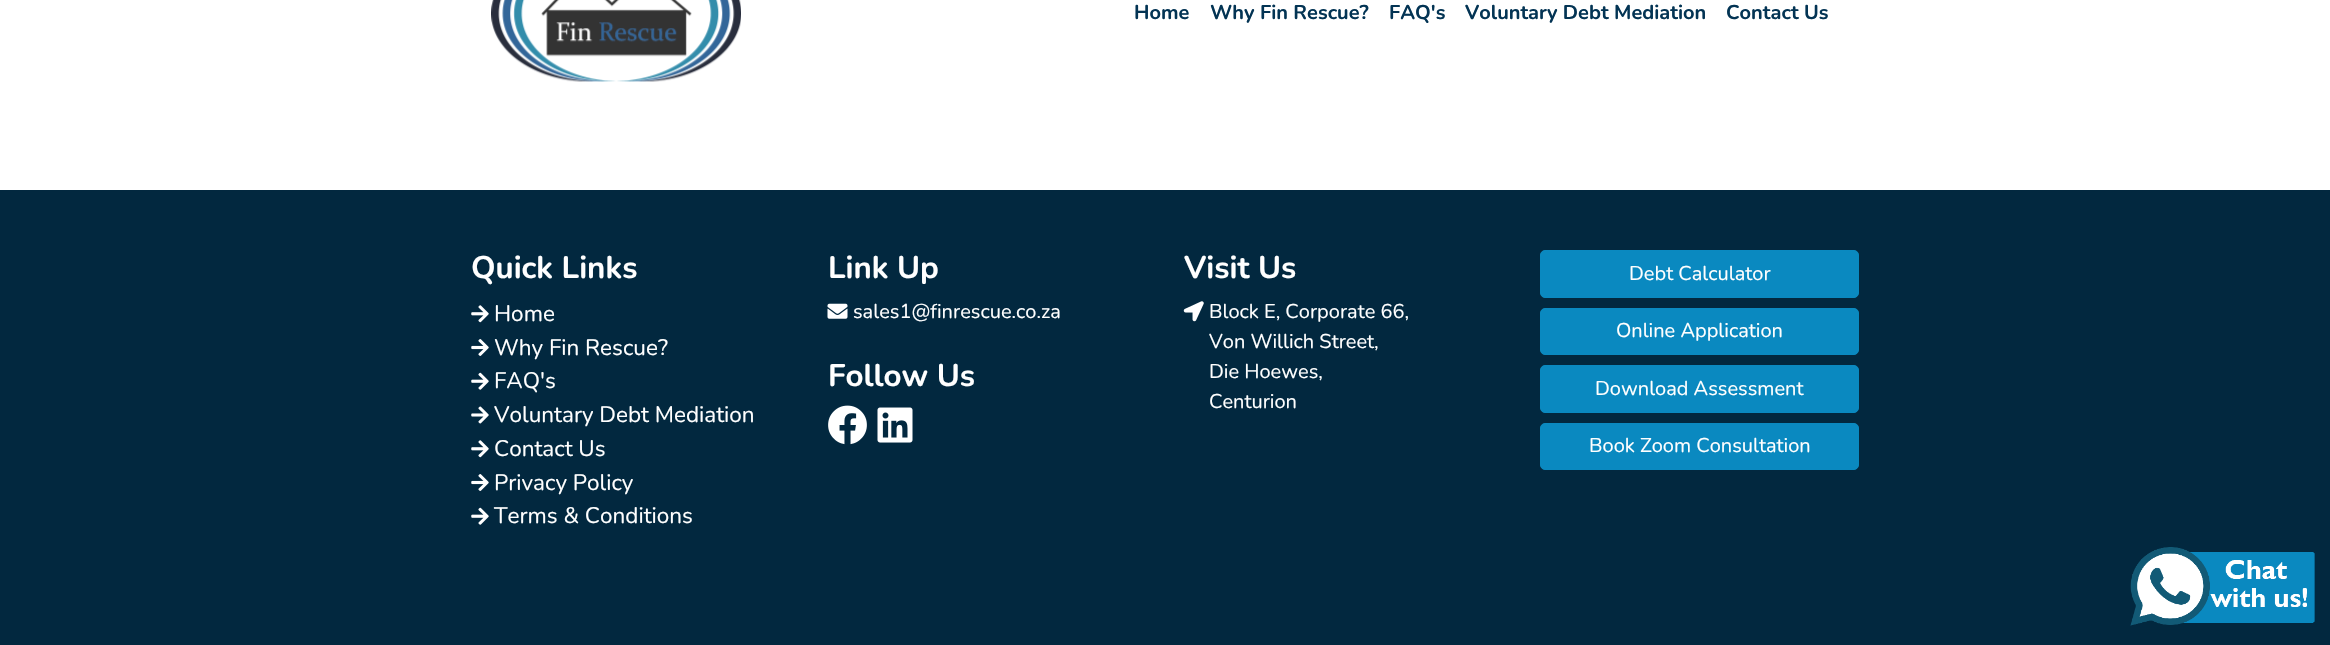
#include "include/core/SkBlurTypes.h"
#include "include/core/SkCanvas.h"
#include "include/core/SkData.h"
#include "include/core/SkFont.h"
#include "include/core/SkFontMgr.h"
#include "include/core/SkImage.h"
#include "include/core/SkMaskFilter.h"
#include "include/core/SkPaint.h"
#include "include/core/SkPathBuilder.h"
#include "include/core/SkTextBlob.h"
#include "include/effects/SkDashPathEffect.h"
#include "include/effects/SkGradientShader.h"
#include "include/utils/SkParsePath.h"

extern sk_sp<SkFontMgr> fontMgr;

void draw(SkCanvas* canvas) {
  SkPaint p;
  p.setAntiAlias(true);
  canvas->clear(SK_ColorWHITE);
  canvas->drawImageRect(SkImages::DeferredFromEncodedData(SkData::MakeFromFileName("images/1.png")), SkRect::MakeLTRB(491, 0, 741, 82), SkSamplingOptions());
  p.setColor(SkColorSetRGB(2, 40, 63));
  canvas->drawRect(SkRect::MakeLTRB(0, 190, 2330, 645), p);
  canvas->drawImageRect(SkImages::DeferredFromEncodedData(SkData::MakeFromFileName("images/2.png")), SkRect::MakeLTRB(471, 305, 489, 323), SkSamplingOptions());
  canvas->drawImageRect(SkImages::DeferredFromEncodedData(SkData::MakeFromFileName("images/3.png")), SkRect::MakeLTRB(471, 339, 489, 356), SkSamplingOptions());
  canvas->drawImageRect(SkImages::DeferredFromEncodedData(SkData::MakeFromFileName("images/4.png")), SkRect::MakeLTRB(471, 372, 489, 390), SkSamplingOptions());
  canvas->drawImageRect(SkImages::DeferredFromEncodedData(SkData::MakeFromFileName("images/5.png")), SkRect::MakeLTRB(471, 406, 489, 424), SkSamplingOptions());
  canvas->drawImageRect(SkImages::DeferredFromEncodedData(SkData::MakeFromFileName("images/2.png")), SkRect::MakeLTRB(471, 440, 489, 458), SkSamplingOptions());
  canvas->drawImageRect(SkImages::DeferredFromEncodedData(SkData::MakeFromFileName("images/3.png")), SkRect::MakeLTRB(471, 474, 489, 491), SkSamplingOptions());
  canvas->drawImageRect(SkImages::DeferredFromEncodedData(SkData::MakeFromFileName("images/4.png")), SkRect::MakeLTRB(471, 507, 489, 525), SkSamplingOptions());
  canvas->drawImageRect(SkImages::DeferredFromEncodedData(SkData::MakeFromFileName("images/6.png")), SkRect::MakeLTRB(827, 303, 848, 319), SkSamplingOptions());
  canvas->drawImageRect(SkImages::DeferredFromEncodedData(SkData::MakeFromFileName("images/7.png")), SkRect::MakeLTRB(828, 405, 867, 445), SkSamplingOptions());
  canvas->drawImageRect(SkImages::DeferredFromEncodedData(SkData::MakeFromFileName("images/8.png")), SkRect::MakeLTRB(877, 407, 913, 443), SkSamplingOptions());
  canvas->drawImageRect(SkImages::DeferredFromEncodedData(SkData::MakeFromFileName("images/9.png")), SkRect::MakeLTRB(1183, 301, 1204, 322), SkSamplingOptions());
  p.setColor(SkColorSetRGB(10, 137, 192));
  canvas->drawRoundRect(SkRect::MakeLTRB(1540.5f, 250.5f, 1858.5f, 297.5f), 4.5f, 4.5f, p);
  p.setStyle(SkPaint::kStroke_Style);
  p.setStrokeWidth(1);
  canvas->drawRoundRect(SkRect::MakeLTRB(1540.5f, 250.5f, 1858.5f, 297.5f), 4.5f, 4.5f, p);
  p.setStyle(SkPaint::kFill_Style);
  canvas->drawRoundRect(SkRect::MakeLTRB(1540.5f, 308.5f, 1858.5f, 354.5f), 4.5f, 4.5f, p);
  p.setStyle(SkPaint::kStroke_Style);
  canvas->drawRoundRect(SkRect::MakeLTRB(1540.5f, 308.5f, 1858.5f, 354.5f), 4.5f, 4.5f, p);
  p.setStyle(SkPaint::kFill_Style);
  canvas->drawRoundRect(SkRect::MakeLTRB(1540.5f, 365.5f, 1858.5f, 412.5f), 4.5f, 4.5f, p);
  p.setStyle(SkPaint::kStroke_Style);
  canvas->drawRoundRect(SkRect::MakeLTRB(1540.5f, 365.5f, 1858.5f, 412.5f), 4.5f, 4.5f, p);
  p.setStyle(SkPaint::kFill_Style);
  canvas->drawRoundRect(SkRect::MakeLTRB(1540.5f, 423.5f, 1858.5f, 469.5f), 4.5f, 4.5f, p);
  p.setStyle(SkPaint::kStroke_Style);
  canvas->drawRoundRect(SkRect::MakeLTRB(1540.5f, 423.5f, 1858.5f, 469.5f), 4.5f, 4.5f, p);
  canvas->drawImageRect(SkImages::DeferredFromEncodedData(SkData::MakeFromFileName("images/10.png")), SkRect::MakeLTRB(2130, 547, 2315, 626), SkSamplingOptions());
  SkFont font1(fontMgr->matchFamilyStyle("Nunito", SkFontStyle::Bold()), 20);
  font1.setSubpixel(true);
  p.setStyle(SkPaint::kFill_Style);
  p.setColor(SkColorSetRGB(3, 52, 84));
  canvas->drawString("Home", 1134, 19, font1, p);
  canvas->drawString("Why Fin Rescue?", 1210, 19, font1, p);
  canvas->drawString("FAQ's", 1389, 19, font1, p);
  canvas->drawString("Voluntary Debt Mediation", 1465, 19, font1, p);
  canvas->drawString("Contact Us", 1726, 19, font1, p);
  SkFont font2(fontMgr->matchFamilyStyle("Nunito", SkFontStyle::Bold()), 31.25f);
  font2.setSubpixel(true);
  p.setColor(SK_ColorWHITE);
  canvas->drawString("Quick Links", 471, 278, font2, p);
  SkFont font3(fontMgr->matchFamilyStyle("Nunito", SkFontStyle::Normal()), 22.5f);
  font3.setSubpixel(true);
  canvas->drawString("Home", 494, 321, font3, p);
  canvas->drawString("Why Fin Rescue?", 494, 355, font3, p);
  canvas->drawString("FAQ's", 494, 388, font3, p);
  canvas->drawString("Voluntary Debt Mediation", 494, 422, font3, p);
  canvas->drawString("Contact Us", 494, 456, font3, p);
  canvas->drawString("Privacy Policy", 494, 490, font3, p);
  canvas->drawString("Terms & Conditions", 494, 523, font3, p);
  canvas->drawString("Link Up", 828, 278, font2, p);
  SkFont font4(fontMgr->matchFamilyStyle("Nunito", SkFontStyle::Normal()), 20);
  font4.setSubpixel(true);
  canvas->drawString("sales1@finrescue.co.za", 853, 318, font4, p);
  canvas->drawString("Follow Us", 828, 386, font2, p);
  canvas->drawString("Visit Us", 1184, 278, font2, p);
  canvas->drawString("Block E, Corporate 66,", 1209, 318, font4, p);
  canvas->drawString("Von Willich Street,", 1209, 348, font4, p);
  canvas->drawString("Die Hoewes,", 1209, 378, font4, p);
  canvas->drawString("Centurion", 1209, 408, font4, p);
  canvas->drawString("Debt Calculator", 1629, 280, font4, p);
  canvas->drawString("Online Application", 1616, 337, font4, p);
  canvas->drawString("Download Assessment", 1595, 395, font4, p);
  canvas->drawString("Book Zoom Consultation", 1589, 452, font4, p);
}
